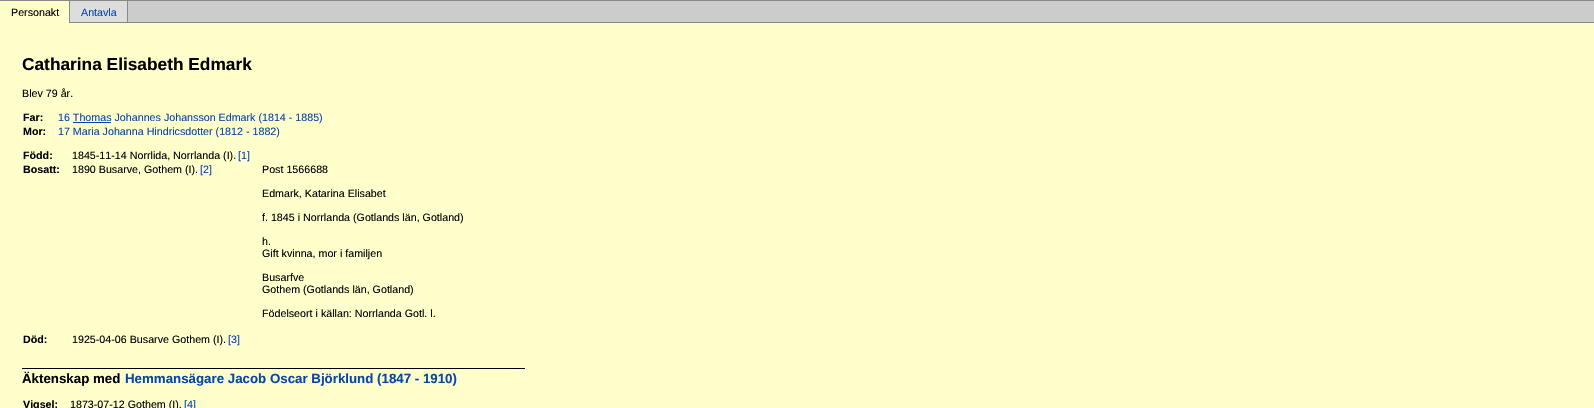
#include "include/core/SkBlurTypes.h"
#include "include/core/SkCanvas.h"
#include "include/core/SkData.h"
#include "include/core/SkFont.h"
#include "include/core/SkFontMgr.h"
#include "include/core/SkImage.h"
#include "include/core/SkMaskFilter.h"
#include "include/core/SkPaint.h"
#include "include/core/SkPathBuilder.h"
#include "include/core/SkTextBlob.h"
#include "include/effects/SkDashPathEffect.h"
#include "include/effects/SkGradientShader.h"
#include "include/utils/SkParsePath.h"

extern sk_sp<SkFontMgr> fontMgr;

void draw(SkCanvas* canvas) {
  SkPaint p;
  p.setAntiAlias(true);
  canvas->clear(SkColorSetRGB(255, 255, 204));
  p.setColor(SkColorSetRGB(136, 136, 136));
  canvas->drawRect(SkRect::MakeLTRB(0, 0, 1594, 1), p);
  canvas->drawRect(SkRect::MakeLTRB(69, 0, 70, 23), p);
  p.setColor(SkColorSetRGB(221, 221, 221));
  canvas->drawRect(SkRect::MakeLTRB(70, 1, 127, 22), p);
  p.setColor(SkColorSetRGB(136, 136, 136));
  canvas->drawRect(SkRect::MakeLTRB(127, 0, 128, 23), p);
  canvas->drawRect(SkRect::MakeLTRB(70, 22, 1594, 23), p);
  p.setColor(SkColorSetRGB(204, 204, 204));
  canvas->drawRect(SkRect::MakeLTRB(128, 1, 1594, 22), p);
  p.setColor(SkColorSetRGB(6, 69, 173));
  canvas->drawRect(SkRect::MakeLTRB(73, 122, 111, 123), p);
  p.setColor(SK_ColorBLACK);
  canvas->drawRect(SkRect::MakeLTRB(22, 368, 525, 369), p);
  SkFont font1(fontMgr->matchFamilyStyle("Liberation Sans", SkFontStyle::Normal()), 10.7f);
  font1.setSubpixel(true);
  canvas->drawString("Personakt", 11, 16, font1, p);
  p.setColor(SkColorSetRGB(6, 69, 173));
  canvas->drawString("Antavla", 81, 16, font1, p);
  SkFont font2(fontMgr->matchFamilyStyle("Liberation Sans", SkFontStyle::Bold()), 17.3f);
  font2.setSubpixel(true);
  p.setColor(SK_ColorBLACK);
  canvas->drawString("Catharina Elisabeth Edmark", 22, 70, font2, p);
  canvas->drawString("Blev 79 år.", 22, 97, font1, p);
  SkFont font3(fontMgr->matchFamilyStyle("Liberation Sans", SkFontStyle::Bold()), 10.7f);
  font3.setSubpixel(true);
  canvas->drawString("Far:", 23, 121, font3, p);
  p.setColor(SkColorSetRGB(6, 69, 173));
  canvas->drawString("16 Thomas Johannes Johansson Edmark (1814 - 1885)", 58, 121, font1, p);
  p.setColor(SK_ColorBLACK);
  canvas->drawString("Mor:", 23, 135, font3, p);
  p.setColor(SkColorSetRGB(6, 69, 173));
  canvas->drawString("17 Maria Johanna Hindricsdotter (1812 - 1882)", 58, 135, font1, p);
  p.setColor(SK_ColorBLACK);
  canvas->drawString("Född:", 23, 159, font3, p);
  canvas->drawString("1845-11-14 Norrlida, Norrlanda (I).", 72, 159, font1, p);
  p.setColor(SkColorSetRGB(6, 69, 173));
  canvas->drawString("[1]", 238, 159, font1, p);
  p.setColor(SK_ColorBLACK);
  canvas->drawString("Bosatt:", 23, 173, font3, p);
  canvas->drawString("1890 Busarve, Gothem (I).", 72, 173, font1, p);
  p.setColor(SkColorSetRGB(6, 69, 173));
  canvas->drawString("[2]", 200, 173, font1, p);
  p.setColor(SK_ColorBLACK);
  canvas->drawString("Post 1566688", 262, 173, font1, p);
  canvas->drawString("Edmark, Katarina Elisabet", 262, 197, font1, p);
  canvas->drawString("f. 1845 i Norrlanda (Gotlands län, Gotland)", 262, 221, font1, p);
  canvas->drawString("h.", 262, 245, font1, p);
  canvas->drawString("Gift kvinna, mor i familjen", 262, 257, font1, p);
  canvas->drawString("Busarfve", 262, 281, font1, p);
  canvas->drawString("Gothem (Gotlands län, Gotland)", 262, 293, font1, p);
  canvas->drawString("Födelseort i källan: Norrlanda Gotl. l.", 262, 317, font1, p);
  canvas->drawString("Död:", 23, 343, font3, p);
  canvas->drawString("1925-04-06 Busarve Gothem (I).", 72, 343, font1, p);
  p.setColor(SkColorSetRGB(6, 69, 173));
  canvas->drawString("[3]", 228, 343, font1, p);
  SkFont font4(fontMgr->matchFamilyStyle("Liberation Sans", SkFontStyle::Bold()), 13.3f);
  font4.setSubpixel(true);
  p.setColor(SK_ColorBLACK);
  canvas->drawString("Äktenskap med", 22, 383, font4, p);
  p.setColor(SkColorSetRGB(6, 69, 173));
  canvas->drawString("Hemmansägare Jacob Oscar Björklund (1847 - 1910)", 125, 383, font4, p);
  p.setColor(SK_ColorBLACK);
  canvas->drawString("Vigsel:", 23, 408, font3, p);
  canvas->drawString("1873-07-12 Gothem (I).", 70, 408, font1, p);
  p.setColor(SkColorSetRGB(6, 69, 173));
  canvas->drawString("[4]", 184, 408, font1, p);
}
